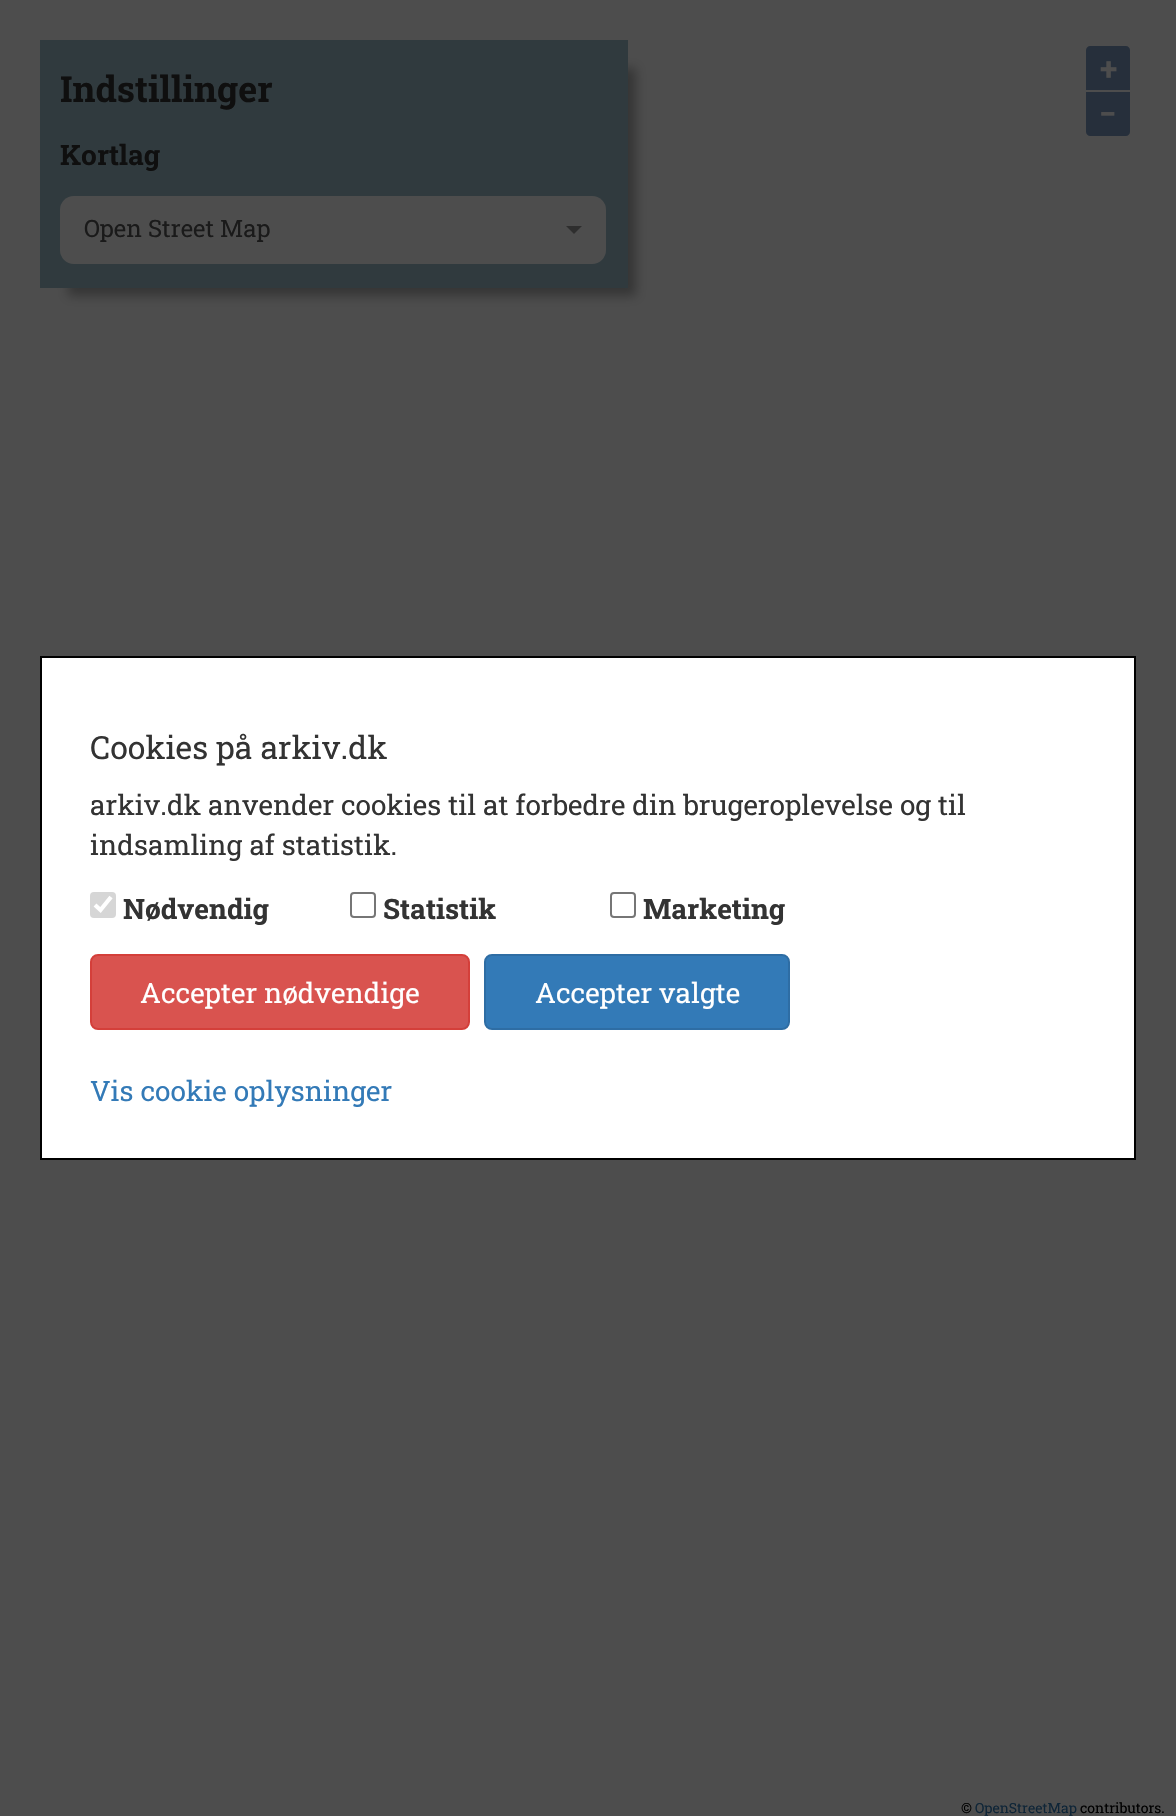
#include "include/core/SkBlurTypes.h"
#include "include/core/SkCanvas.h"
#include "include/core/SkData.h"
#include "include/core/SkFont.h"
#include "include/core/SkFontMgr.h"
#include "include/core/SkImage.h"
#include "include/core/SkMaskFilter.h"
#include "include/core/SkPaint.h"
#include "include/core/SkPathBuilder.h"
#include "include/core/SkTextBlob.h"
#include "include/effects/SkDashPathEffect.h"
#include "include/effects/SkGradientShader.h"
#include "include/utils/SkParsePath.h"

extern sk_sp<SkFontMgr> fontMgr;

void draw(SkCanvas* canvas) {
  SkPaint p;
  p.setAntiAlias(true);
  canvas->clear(SkColorSetRGB(77, 77, 77));
  p.setColor(SkColorSetARGB(77, 0, 0, 0));
  p.setMaskFilter(SkMaskFilter::MakeBlur(kNormal_SkBlurStyle, 5));
  canvas->drawRect(SkRect::MakeLTRB(68, 68, 636, 296), p);
  p.setMaskFilter(nullptr);
  p.setColor(SkColorSetRGB(48, 58, 62));
  canvas->drawRect(SkRect::MakeLTRB(40, 40, 628, 288), p);
  p.setColor(SkColorSetRGB(77, 77, 77));
  canvas->drawRoundRect(SkRect::MakeLTRB(60, 196, 606, 264), 14, 14, p);
  p.setColor(SkColorSetRGB(46, 46, 46));
  canvas->drawPath(SkPathBuilder().moveTo(566, 226).lineTo(582, 226).lineTo(574, 234).close().detach(), p);
  p.setColor(SkColorSetRGB(38, 47, 59));
  canvas->drawPath(SkPathBuilder().moveTo(1090, 46).lineTo(1126, 46).cubicTo(1128, 46, 1130, 48, 1130, 50).lineTo(1130, 90).lineTo(1086, 90).lineTo(1086, 50).cubicTo(1086, 48, 1088, 46, 1090, 46).close().detach(), p);
  canvas->drawPath(SkPathBuilder().moveTo(1086, 92).lineTo(1130, 92).lineTo(1130, 132).cubicTo(1130, 134, 1128, 136, 1126, 136).lineTo(1090, 136).cubicTo(1088, 136, 1086, 134, 1086, 132).close().detach(), p);
  p.setColor(SK_ColorWHITE);
  canvas->drawRect(SkRect::MakeLTRB(41, 657, 1135, 1159), p);
  p.setStyle(SkPaint::kStroke_Style);
  p.setStrokeWidth(2);
  p.setColor(SK_ColorBLACK);
  canvas->drawRect(SkRect::MakeLTRB(41, 657, 1135, 1159), p);
  p.setStyle(SkPaint::kFill_Style);
  p.setColor(SkColorSetRGB(214, 214, 214));
  canvas->drawRoundRect(SkRect::MakeLTRB(90, 892, 116, 918), 4, 4, p);
  p.setStyle(SkPaint::kStroke_Style);
  p.setStrokeWidth(4.2f);
  p.setColor(SK_ColorWHITE);
  canvas->drawPath(SkPathBuilder().moveTo(95, 905).lineTo(100.5f, 910).lineTo(111, 897).detach(), p);
  p.setStrokeWidth(2);
  p.setColor(SkColorSetRGB(118, 118, 118));
  canvas->drawRoundRect(SkRect::MakeLTRB(351, 893, 375, 917), 3, 3, p);
  canvas->drawRoundRect(SkRect::MakeLTRB(611, 893, 635, 917), 3, 3, p);
  p.setStyle(SkPaint::kFill_Style);
  p.setColor(SkColorSetRGB(217, 83, 79));
  canvas->drawRoundRect(SkRect::MakeLTRB(91, 955, 469, 1029), 7, 7, p);
  p.setStyle(SkPaint::kStroke_Style);
  p.setColor(SkColorSetRGB(212, 63, 58));
  canvas->drawRoundRect(SkRect::MakeLTRB(91, 955, 469, 1029), 7, 7, p);
  p.setStyle(SkPaint::kFill_Style);
  p.setColor(SkColorSetRGB(51, 122, 183));
  canvas->drawRoundRect(SkRect::MakeLTRB(485, 955, 789, 1029), 7, 7, p);
  p.setStyle(SkPaint::kStroke_Style);
  p.setColor(SkColorSetRGB(46, 109, 164));
  canvas->drawRoundRect(SkRect::MakeLTRB(485, 955, 789, 1029), 7, 7, p);
  SkFont font1(fontMgr->matchFamilyStyle("Roboto Slab", SkFontStyle::Bold()), 36);
  font1.setSubpixel(true);
  p.setStyle(SkPaint::kFill_Style);
  p.setColor(SkColorSetRGB(15, 15, 15));
  canvas->drawString("Indstillinger", 60, 102, font1, p);
  SkFont font2(fontMgr->matchFamilyStyle("Roboto Slab", SkFontStyle::Bold()), 28);
  font2.setSubpixel(true);
  canvas->drawString("Kortlag", 60, 165, font2, p);
  SkFont font3(fontMgr->matchFamilyStyle("Roboto Slab", SkFontStyle::Normal()), 24);
  font3.setSubpixel(true);
  p.setColor(SkColorSetRGB(26, 26, 26));
  canvas->drawString("Open Street Map", 84, 237, font3, p);
  SkFont font4(fontMgr->matchFamilyStyle("Roboto Slab", SkFontStyle::Bold()), 32);
  font4.setSubpixel(true);
  p.setColor(SkColorSetRGB(77, 77, 77));
  canvas->drawString("+", 1100, 80, font4, p);
  canvas->drawString("−", 1099, 125, font4, p);
  SkFont font5(fontMgr->matchFamilyStyle("Roboto Slab", SkFontStyle::Normal()), 14);
  font5.setSubpixel(true);
  p.setColor(SK_ColorBLACK);
  canvas->drawString("©", 961, 1813, font5, p);
  p.setColor(SkColorSetRGB(15, 37, 55));
  canvas->drawString("OpenStreetMap", 975, 1813, font5, p);
  p.setColor(SK_ColorBLACK);
  canvas->drawString("contributors.", 1080, 1813, font5, p);
  SkFont font6(fontMgr->matchFamilyStyle("Roboto Slab", SkFontStyle::Normal()), 32);
  font6.setSubpixel(true);
  p.setColor(SkColorSetRGB(51, 51, 51));
  canvas->drawString("Cookies på arkiv.dk", 90, 759, font6, p);
  SkFont font7(fontMgr->matchFamilyStyle("Roboto Slab", SkFontStyle::Normal()), 28);
  font7.setSubpixel(true);
  canvas->drawString("arkiv.dk anvender cookies til at forbedre din brugeroplevelse og til", 90, 815, font7, p);
  canvas->drawString("indsamling af statistik.", 90, 855, font7, p);
  canvas->drawString("Nødvendig", 123, 919, font2, p);
  canvas->drawString("Statistik", 383, 919, font2, p);
  canvas->drawString("Marketing", 643, 919, font2, p);
  p.setColor(SK_ColorWHITE);
  canvas->drawString("Accepter nødvendige", 140, 1003, font7, p);
  canvas->drawString("Accepter valgte", 535, 1003, font7, p);
  p.setColor(SkColorSetRGB(51, 122, 183));
  canvas->drawString("Vis cookie oplysninger", 90, 1101, font7, p);
}
